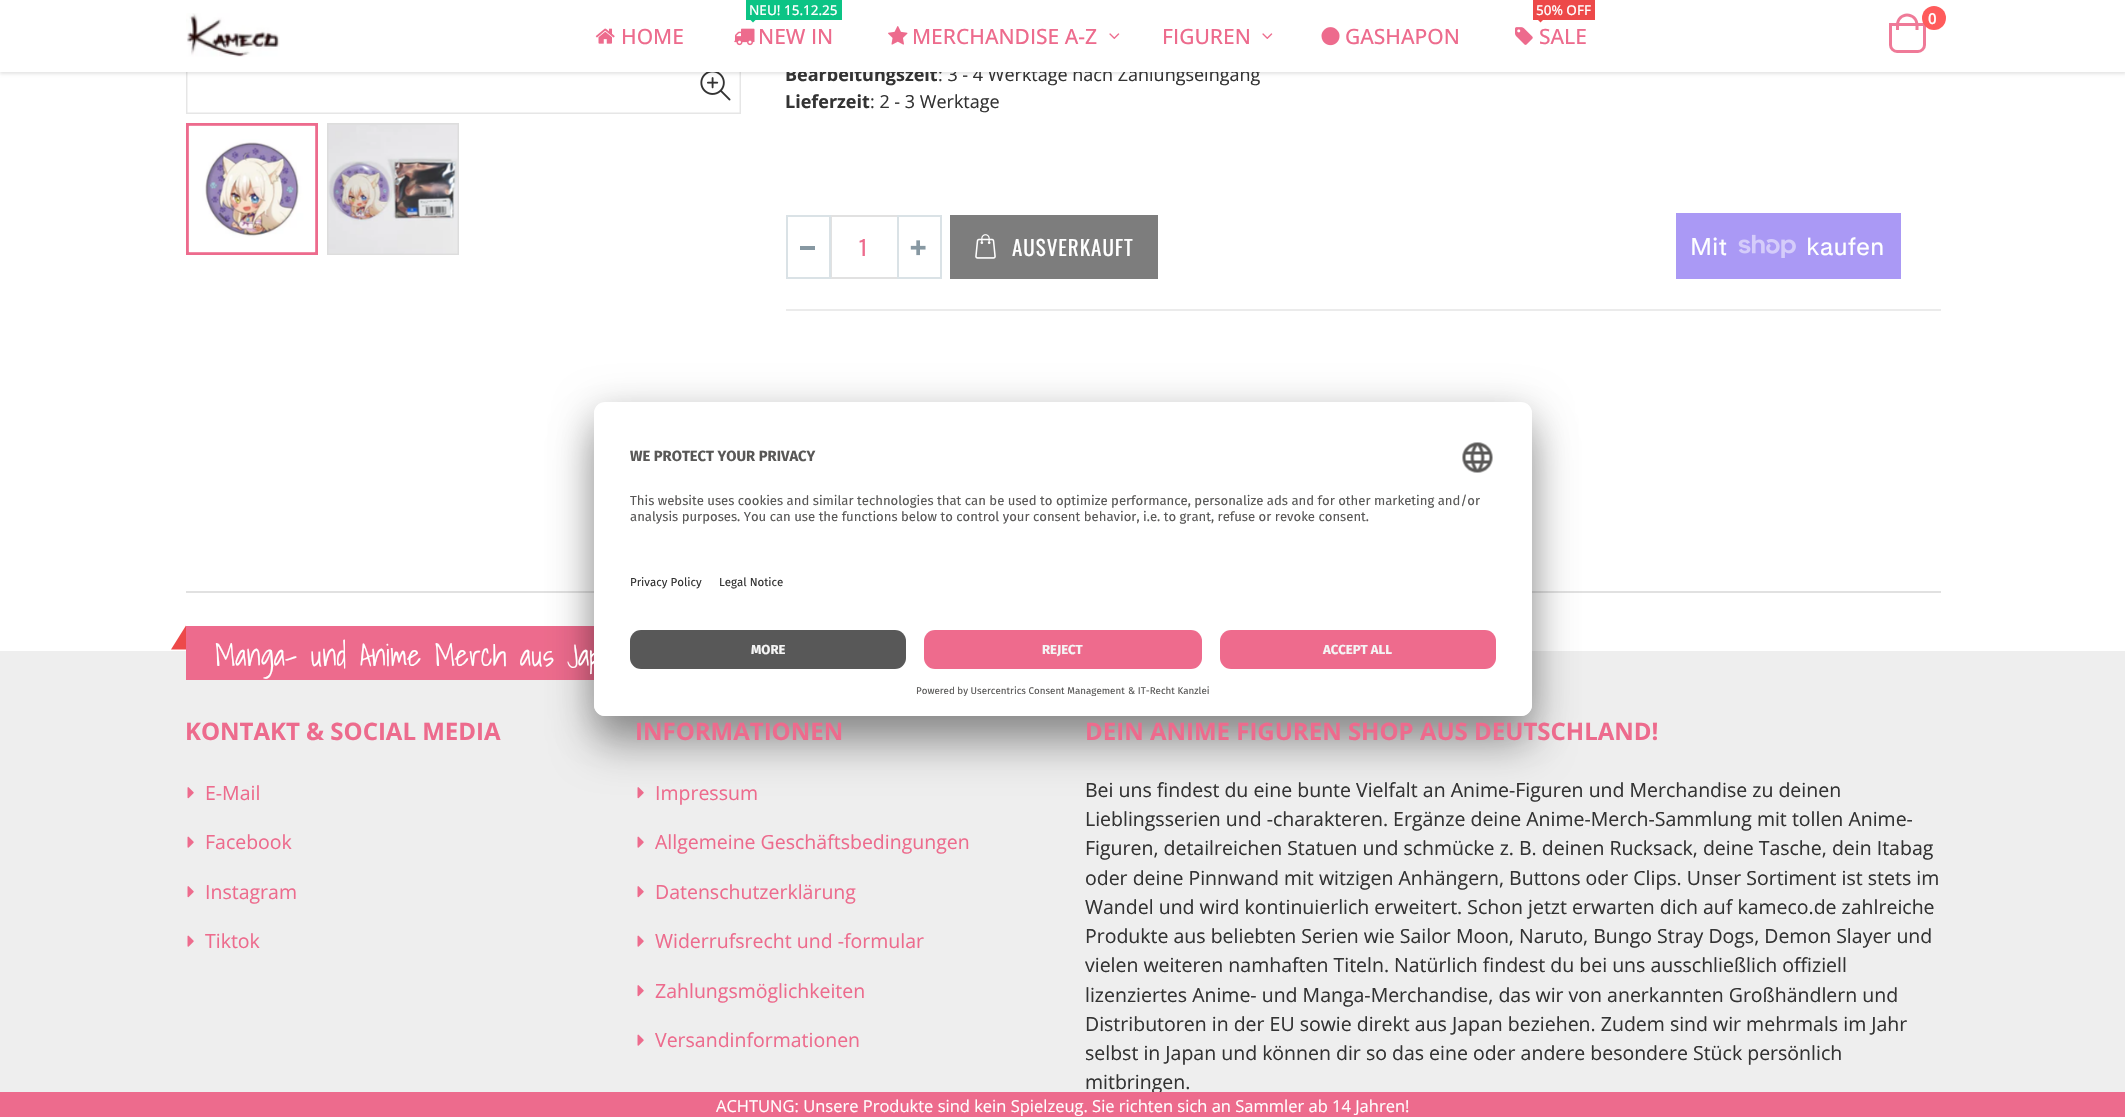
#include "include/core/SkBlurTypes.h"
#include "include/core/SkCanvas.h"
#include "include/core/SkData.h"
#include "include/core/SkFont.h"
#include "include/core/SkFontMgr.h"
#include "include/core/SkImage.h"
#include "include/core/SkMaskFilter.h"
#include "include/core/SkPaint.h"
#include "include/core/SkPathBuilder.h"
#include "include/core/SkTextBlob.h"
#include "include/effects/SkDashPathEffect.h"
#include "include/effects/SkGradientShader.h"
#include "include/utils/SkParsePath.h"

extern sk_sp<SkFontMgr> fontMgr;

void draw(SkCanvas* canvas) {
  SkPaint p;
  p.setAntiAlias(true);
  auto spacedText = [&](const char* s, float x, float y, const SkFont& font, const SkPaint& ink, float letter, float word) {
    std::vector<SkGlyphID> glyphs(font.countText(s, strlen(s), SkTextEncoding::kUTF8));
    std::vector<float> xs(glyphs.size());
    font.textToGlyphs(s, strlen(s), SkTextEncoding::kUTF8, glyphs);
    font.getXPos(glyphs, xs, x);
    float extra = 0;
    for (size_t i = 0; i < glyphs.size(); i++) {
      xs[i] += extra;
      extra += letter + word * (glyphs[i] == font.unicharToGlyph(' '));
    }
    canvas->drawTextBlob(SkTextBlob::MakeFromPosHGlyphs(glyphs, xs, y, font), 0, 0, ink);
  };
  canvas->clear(SK_ColorWHITE);
  p.setStyle(SkPaint::kStroke_Style);
  p.setStrokeWidth(2);
  p.setColor(SkColorSetRGB(230, 230, 230));
  canvas->drawRect(SkRect::MakeLTRB(187, -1, 740, 113), p);
  canvas->drawImageRect(SkImages::DeferredFromEncodedData(SkData::MakeFromFileName("images/8.png")), SkRect::MakeLTRB(187, 72, 740, 113), SkSamplingOptions());
  canvas->drawImageRect(SkImages::DeferredFromEncodedData(SkData::MakeFromFileName("images/9.png")), SkRect::MakeLTRB(700, 72, 731, 101), SkSamplingOptions());
  p.setStyle(SkPaint::kFill_Style);
  p.setColor(SkColorSetARGB(26, 0, 0, 0));
  p.setMaskFilter(SkMaskFilter::MakeBlur(kNormal_SkBlurStyle, 1.5f));
  canvas->drawRect(SkRect::MakeLTRB(0, 2, 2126, 74), p);
  p.setMaskFilter(nullptr);
  p.setStyle(SkPaint::kStroke_Style);
  p.setStrokeWidth(3);
  p.setColor(SkColorSetRGB(237, 107, 141));
  canvas->drawRect(SkRect::MakeLTRB(187.5f, 124.5f, 316.5f, 253.5f), p);
  canvas->drawImageRect(SkImages::DeferredFromEncodedData(SkData::MakeFromFileName("images/10.png")), SkRect::MakeLTRB(188, 125, 316, 253), SkSamplingOptions());
  p.setStrokeWidth(2);
  p.setColor(SkColorSetRGB(221, 221, 221));
  canvas->drawRect(SkRect::MakeLTRB(328, 124, 458, 254), p);
  canvas->drawImageRect(SkImages::DeferredFromEncodedData(SkData::MakeFromFileName("images/11.png")), SkRect::MakeLTRB(328, 124, 458, 254), SkSamplingOptions());
  p.setStyle(SkPaint::kFill_Style);
  p.setColor(SkColorSetRGB(235, 235, 235));
  canvas->drawRect(SkRect::MakeLTRB(786, 309, 1941, 311), p);
  p.setStyle(SkPaint::kStroke_Style);
  p.setColor(SkColorSetRGB(225, 225, 225));
  canvas->drawRect(SkRect::MakeLTRB(831, 216, 898, 278), p);
  p.setColor(SkColorSetRGB(218, 226, 230));
  canvas->drawRect(SkRect::MakeLTRB(787, 216, 830, 278), p);
  p.setStyle(SkPaint::kFill_Style);
  p.setColor(SkColorSetRGB(135, 152, 162));
  canvas->drawRect(SkRect::MakeLTRB(800, 246, 815, 250), p);
  p.setStyle(SkPaint::kStroke_Style);
  p.setColor(SkColorSetRGB(218, 226, 230));
  canvas->drawRect(SkRect::MakeLTRB(898, 216, 941, 278), p);
  canvas->drawImageRect(SkImages::DeferredFromEncodedData(SkData::MakeFromFileName("images/12.png")), SkRect::MakeLTRB(910, 240, 926, 256), SkSamplingOptions());
  p.setStyle(SkPaint::kFill_Style);
  p.setColor(SkColorSetRGB(125, 125, 125));
  canvas->drawRect(SkRect::MakeLTRB(950, 215, 1158, 279), p);
  canvas->drawImageRect(SkImages::DeferredFromEncodedData(SkData::MakeFromFileName("images/13.png")), SkRect::MakeLTRB(975, 234, 996, 259), SkSamplingOptions());
  p.setColor(SkColorSetRGB(170, 153, 245));
  canvas->drawRect(SkRect::MakeLTRB(1676, 213, 1901, 279), p);
  canvas->drawImageRect(SkImages::DeferredFromEncodedData(SkData::MakeFromFileName("images/14.png")), SkRect::MakeLTRB(1738, 234, 1796, 258), SkSamplingOptions());
  p.setColor(SkColorSetRGB(225, 225, 225));
  canvas->drawRect(SkRect::MakeLTRB(186, 591, 1941, 593), p);
  p.setColor(SkColorSetRGB(238, 238, 238));
  canvas->drawRect(SkRect::MakeLTRB(0, 651, 2125, 1092), p);
  p.setColor(SkColorSetRGB(237, 107, 141));
  canvas->drawRect(SkRect::MakeLTRB(186, 626, 594, 680), p);
  p.setColor(SkColorSetRGB(237, 73, 73));
  canvas->drawPath(SkPathBuilder().moveTo(186, 625.5f).lineTo(186, 649.5f).lineTo(171, 649.5f).close().detach(), p);
  canvas->drawImageRect(SkImages::DeferredFromEncodedData(SkData::MakeFromFileName("images/15.png")), SkRect::MakeLTRB(187, 787, 194, 799), SkSamplingOptions());
  canvas->drawImageRect(SkImages::DeferredFromEncodedData(SkData::MakeFromFileName("images/16.png")), SkRect::MakeLTRB(187, 836, 194, 848), SkSamplingOptions());
  canvas->drawImageRect(SkImages::DeferredFromEncodedData(SkData::MakeFromFileName("images/15.png")), SkRect::MakeLTRB(187, 886, 194, 898), SkSamplingOptions());
  canvas->drawImageRect(SkImages::DeferredFromEncodedData(SkData::MakeFromFileName("images/16.png")), SkRect::MakeLTRB(187, 935, 194, 947), SkSamplingOptions());
  canvas->drawImageRect(SkImages::DeferredFromEncodedData(SkData::MakeFromFileName("images/15.png")), SkRect::MakeLTRB(637, 787, 644, 799), SkSamplingOptions());
  canvas->drawImageRect(SkImages::DeferredFromEncodedData(SkData::MakeFromFileName("images/16.png")), SkRect::MakeLTRB(637, 836, 644, 848), SkSamplingOptions());
  canvas->drawImageRect(SkImages::DeferredFromEncodedData(SkData::MakeFromFileName("images/15.png")), SkRect::MakeLTRB(637, 886, 644, 898), SkSamplingOptions());
  canvas->drawImageRect(SkImages::DeferredFromEncodedData(SkData::MakeFromFileName("images/16.png")), SkRect::MakeLTRB(637, 935, 644, 947), SkSamplingOptions());
  canvas->drawImageRect(SkImages::DeferredFromEncodedData(SkData::MakeFromFileName("images/15.png")), SkRect::MakeLTRB(637, 985, 644, 997), SkSamplingOptions());
  canvas->drawImageRect(SkImages::DeferredFromEncodedData(SkData::MakeFromFileName("images/16.png")), SkRect::MakeLTRB(637, 1034, 644, 1046), SkSamplingOptions());
  p.setColor(SkColorSetARGB(77, 0, 0, 0));
  p.setMaskFilter(SkMaskFilter::MakeBlur(kNormal_SkBlurStyle, 21));
  canvas->drawRoundRect(SkRect::MakeLTRB(594, 432, 1532, 746), 11, 11, p);
  p.setMaskFilter(nullptr);
  p.setColor(SkColorSetARGB(56, 0, 0, 0));
  p.setMaskFilter(SkMaskFilter::MakeBlur(kNormal_SkBlurStyle, 19.5f));
  canvas->drawRoundRect(SkRect::MakeLTRB(594, 410, 1532, 723), 11, 11, p);
  p.setMaskFilter(nullptr);
  p.setColor(SK_ColorWHITE);
  canvas->drawRoundRect(SkRect::MakeLTRB(594, 402, 1532, 716), 11, 11, p);
  canvas->save();
  canvas->clipPath(SkPathBuilder().moveTo(605, 402).lineTo(1521, 402).cubicTo(1527, 402, 1532, 407, 1532, 413).lineTo(1532, 705).cubicTo(1532, 711, 1527, 716, 1521, 716).lineTo(605, 716).cubicTo(599, 716, 594, 711, 594, 705).lineTo(594, 413).cubicTo(594, 407, 599, 402, 605, 402).close().detach(), true);
  canvas->clipPath(SkPathBuilder().moveTo(605, 402).lineTo(1521, 402).cubicTo(1527, 402, 1532, 407, 1532, 413).lineTo(1532, 618).lineTo(594, 618).lineTo(594, 413).cubicTo(594, 407, 599, 402, 605, 402).close().detach(), true);
  canvas->drawRect(SkRect::MakeLTRB(594, 404, 1532, 618), p);
  canvas->restore();
  canvas->drawImageRect(SkImages::DeferredFromEncodedData(SkData::MakeFromFileName("images/17.png")), SkRect::MakeLTRB(1462, 442, 1493, 473), SkSamplingOptions());
  canvas->drawPath(SkPathBuilder().moveTo(594, 618).lineTo(1532, 618).lineTo(1532, 705).cubicTo(1532, 711, 1527, 716, 1521, 716).lineTo(605, 716).cubicTo(599, 716, 594, 711, 594, 705).close().detach(), p);
  p.setColor(SkColorSetRGB(88, 88, 88));
  canvas->drawRoundRect(SkRect::MakeLTRB(630, 630, 906, 669), 11, 11, p);
  p.setColor(SkColorSetRGB(238, 107, 141));
  canvas->drawRoundRect(SkRect::MakeLTRB(924, 630, 1202, 669), 11, 11, p);
  canvas->drawRoundRect(SkRect::MakeLTRB(1220, 630, 1496, 669), 11, 11, p);
  SkFont font1(fontMgr->matchFamilyStyle("Open Sans", SkFontStyle::Bold()), 18);
  font1.setSubpixel(true);
  p.setColor(SkColorSetRGB(51, 51, 51));
  canvas->drawString("Bearbeitungszeit", 785, 81, font1, p);
  SkFont font2(fontMgr->matchFamilyStyle("Open Sans", SkFontStyle::Normal()), 18);
  font2.setSubpixel(true);
  canvas->drawString(": 3 - 4 Werktage nach Zahlungseingang", 938, 81, font2, p);
  p.setColor(SK_ColorWHITE);
  canvas->drawRect(SkRect::MakeLTRB(0, 0, 2125, 72), p);
  canvas->drawImageRect(SkImages::DeferredFromEncodedData(SkData::MakeFromFileName("images/1.png")), SkRect::MakeLTRB(186, 13, 280, 57), SkSamplingOptions());
  p.setStyle(SkPaint::kStroke_Style);
  p.setStrokeWidth(3);
  p.setColor(SkColorSetRGB(239, 122, 152));
  canvas->drawPath(SkPathBuilder().moveTo(1890.5f, 24.5f).lineTo(1924.5f, 24.5f).lineTo(1924.5f, 45).cubicTo(1924.5f, 48.5f, 1921.5f, 51.5f, 1918, 51.5f).lineTo(1897, 51.5f).cubicTo(1893.5f, 51.5f, 1890.5f, 48.5f, 1890.5f, 45).close().detach(), p);
  p.setStyle(SkPaint::kFill_Style);
  p.setColor(SkColorSetRGB(255, 91, 91));
  canvas->drawCircle(1934, 18, 12, p);
  SkFont font3(fontMgr->matchFamilyStyle("Open Sans", SkFontStyle(600, SkFontStyle::kNormal_Width, SkFontStyle::kUpright_Slant)), 15);
  font3.setSubpixel(true);
  p.setColor(SK_ColorWHITE);
  canvas->drawString("0", 1928, 24, font3, p);
  p.setColor(SkColorSetRGB(239, 122, 152));
  canvas->drawPath(SkPathBuilder(SkPathFillType::kEvenOdd).moveTo(1907, 13.5f).cubicTo(1913.5f, 13.5f, 1918.5f, 18.5f, 1918.5f, 25).lineTo(1918.5f, 30).lineTo(1896, 30).lineTo(1896, 25).cubicTo(1896, 18.5f, 1901, 13.5f, 1907, 13.5f).close().moveTo(1907, 16.5f).cubicTo(1912, 16.5f, 1915.5f, 20, 1915.5f, 25).lineTo(1915.5f, 30).lineTo(1899, 30).lineTo(1899, 25).cubicTo(1899, 20, 1902.5f, 16.5f, 1907, 16.5f).close().detach(), p);
  p.setColor(SkColorSetRGB(237, 73, 73));
  canvas->drawRect(SkRect::MakeLTRB(1533, 0, 1595, 20), p);
  canvas->drawPath(SkPathBuilder().moveTo(1537.5f, 19.5f).lineTo(1543.5f, 19.5f).lineTo(1540.5f, 22.5f).close().detach(), p);
  SkFont font4(fontMgr->matchFamilyStyle("Open Sans", SkFontStyle(500, SkFontStyle::kNormal_Width, SkFontStyle::kUpright_Slant)), 13.5f);
  font4.setSubpixel(true);
  p.setColor(SK_ColorWHITE);
  canvas->drawString("50% OFF", 1536, 15, font4, p);
  SkFont font5(fontMgr->matchFamilyStyle("Open Sans", SkFontStyle(500, SkFontStyle::kNormal_Width, SkFontStyle::kUpright_Slant)), 21);
  font5.setSubpixel(true);
  p.setColor(SkColorSetRGB(237, 107, 141));
  canvas->drawString("SALE", 1539, 44, font5, p);
  canvas->drawImageRect(SkImages::DeferredFromEncodedData(SkData::MakeFromFileName("images/7.png")), SkRect::MakeLTRB(1515, 27, 1533, 45), SkSamplingOptions());
  canvas->drawString("GASHAPON", 1345, 44, font5, p);
  canvas->drawImageRect(SkImages::DeferredFromEncodedData(SkData::MakeFromFileName("images/6.png")), SkRect::MakeLTRB(1321, 27, 1340, 46), SkSamplingOptions());
  canvas->drawImageRect(SkImages::DeferredFromEncodedData(SkData::MakeFromFileName("images/5.png")), SkRect::MakeLTRB(1262, 33, 1273, 39), SkSamplingOptions());
  canvas->drawString("FIGUREN", 1162, 44, font5, p);
  canvas->drawImageRect(SkImages::DeferredFromEncodedData(SkData::MakeFromFileName("images/5.png")), SkRect::MakeLTRB(1109, 33, 1120, 39), SkSamplingOptions());
  canvas->drawString("MERCHANDISE A-Z", 912, 44, font5, p);
  canvas->drawImageRect(SkImages::DeferredFromEncodedData(SkData::MakeFromFileName("images/4.png")), SkRect::MakeLTRB(888, 26, 908, 45), SkSamplingOptions());
  p.setColor(SkColorSetRGB(12, 196, 133));
  canvas->drawRect(SkRect::MakeLTRB(746, 0, 842, 20), p);
  canvas->drawPath(SkPathBuilder().moveTo(750, 19.5f).lineTo(756, 19.5f).lineTo(753, 22.5f).close().detach(), p);
  p.setColor(SK_ColorWHITE);
  canvas->drawString("NEU! 15.12.25", 749, 15, font4, p);
  p.setColor(SkColorSetRGB(237, 107, 141));
  canvas->drawString("NEW IN", 758, 44, font5, p);
  canvas->drawImageRect(SkImages::DeferredFromEncodedData(SkData::MakeFromFileName("images/3.png")), SkRect::MakeLTRB(734, 28, 755, 46), SkSamplingOptions());
  canvas->drawString("HOME", 621, 44, font5, p);
  canvas->drawImageRect(SkImages::DeferredFromEncodedData(SkData::MakeFromFileName("images/2.png")), SkRect::MakeLTRB(595, 28, 615, 44), SkSamplingOptions());
  p.setColor(SkColorSetRGB(51, 51, 51));
  canvas->drawString("Lieferzeit", 785, 108, font1, p);
  canvas->drawString(": 2 - 3 Werktage", 870, 108, font2, p);
  SkFont font6(fontMgr->matchFamilyStyle("Oswald", SkFontStyle::Normal()), 21);
  font6.setSubpixel(true);
  p.setColor(SkColorSetRGB(237, 107, 141));
  canvas->drawString("1", 859, 256, font6, p);
  p.setColor(SK_ColorWHITE);
  spacedText("AUSVERKAUFT", 1012, 256, font6, p, 1, 0);
  SkFont font7(fontMgr->matchFamilyStyle("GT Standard", SkFontStyle::Normal()), 24);
  font7.setSubpixel(true);
  canvas->drawString("Mit", 1690, 255, font7, p);
  canvas->drawString("kaufen", 1806, 255, font7, p);
  SkFont font8(fontMgr->matchFamilyStyle("Shadows Into Light", SkFontStyle(300, SkFontStyle::kNormal_Width, SkFontStyle::kUpright_Slant)), 30);
  font8.setSubpixel(true);
  canvas->drawString("Manga- und Anime Merch aus Jap", 215, 666, font8, p);
  SkFont font9(fontMgr->matchFamilyStyle("Open Sans", SkFontStyle::Bold()), 24);
  font9.setSubpixel(true);
  p.setColor(SkColorSetRGB(237, 107, 141));
  canvas->drawString("KONTAKT & SOCIAL MEDIA", 185, 740, font9, p);
  SkFont font10(fontMgr->matchFamilyStyle("Open Sans", SkFontStyle::Normal()), 19.5f);
  font10.setSubpixel(true);
  canvas->drawString("E-Mail", 205, 800, font10, p);
  canvas->drawString("Facebook", 205, 849, font10, p);
  canvas->drawString("Instagram", 205, 899, font10, p);
  canvas->drawString("Tiktok", 205, 948, font10, p);
  canvas->drawString("INFORMATIONEN", 635, 740, font9, p);
  canvas->drawString("Impressum", 655, 800, font10, p);
  canvas->drawString("Allgemeine Geschäftsbedingungen", 655, 849, font10, p);
  canvas->drawString("Datenschutzerklärung", 655, 899, font10, p);
  canvas->drawString("Widerrufsrecht und -formular", 655, 948, font10, p);
  canvas->drawString("Zahlungsmöglichkeiten", 655, 998, font10, p);
  canvas->drawString("Versandinformationen", 655, 1047, font10, p);
  canvas->drawString("DEIN ANIME FIGUREN SHOP AUS DEUTSCHLAND!", 1085, 740, font9, p);
  p.setColor(SkColorSetRGB(51, 51, 51));
  canvas->drawString("Bei uns findest du eine bunte Vielfalt an Anime-Figuren und Merchandise zu deinen", 1085, 797, font10, p);
  canvas->drawString("Lieblingsserien und -charakteren. Ergänze deine Anime-Merch-Sammlung mit tollen Anime-", 1085, 826, font10, p);
  canvas->drawString("Figuren, detailreichen Statuen und schmücke z. B. deinen Rucksack, deine Tasche, dein Itabag", 1085, 855, font10, p);
  canvas->drawString("oder deine Pinnwand mit witzigen Anhängern, Buttons oder Clips. Unser Sortiment ist stets im", 1085, 885, font10, p);
  canvas->drawString("Wandel und wird kontinuierlich erweitert. Schon jetzt erwarten dich auf kameco.de zahlreiche", 1085, 914, font10, p);
  canvas->drawString("Produkte aus beliebten Serien wie Sailor Moon, Naruto, Bungo Stray Dogs, Demon Slayer und", 1085, 943, font10, p);
  canvas->drawString("vielen weiteren namhaften Titeln. Natürlich findest du bei uns ausschließlich offiziell", 1085, 972, font10, p);
  canvas->drawString("lizenziertes Anime- und Manga-Merchandise, das wir von anerkannten Großhändlern und", 1085, 1002, font10, p);
  canvas->drawString("Distributoren in der EU sowie direkt aus Japan beziehen. Zudem sind wir mehrmals im Jahr", 1085, 1031, font10, p);
  canvas->drawString("selbst in Japan und können dir so das eine oder andere besondere Stück persönlich", 1085, 1060, font10, p);
  canvas->drawString("mitbringen.", 1085, 1089, font10, p);
  SkFont font11(fontMgr->matchFamilyStyle("Fira Sans", SkFontStyle::Bold()), 14.75f);
  font11.setSubpixel(true);
  p.setColor(SkColorSetRGB(89, 88, 87));
  canvas->drawString("WE PROTECT YOUR PRIVACY", 630, 461, font11, p);
  SkFont font12(fontMgr->matchFamilyStyle("Fira Sans", SkFontStyle::Normal()), 13.12f);
  font12.setSubpixel(true);
  canvas->drawString("This website uses cookies and similar technologies that can be used to optimize performance, personalize ads and for other marketing and/or", 630, 505, font12, p);
  canvas->drawString("analysis purposes. You can use the functions below to control your consent behavior, i.e. to grant, refuse or revoke consent.", 630, 521, font12, p);
  SkFont font13(fontMgr->matchFamilyStyle("Fira Sans", SkFontStyle::Normal()), 11.5f);
  font13.setSubpixel(true);
  p.setColor(SkColorSetRGB(51, 51, 51));
  canvas->drawString("Privacy Policy", 630, 586, font13, p);
  canvas->drawString("Legal Notice", 719, 586, font13, p);
  SkFont font14(fontMgr->matchFamilyStyle("Fira Sans", SkFontStyle::Bold()), 13.12f);
  font14.setSubpixel(true);
  p.setColor(SkColorSetRGB(245, 245, 245));
  canvas->drawString("MORE", 751, 654, font14, p);
  canvas->drawString("REJECT", 1042, 654, font14, p);
  canvas->drawString("ACCEPT ALL", 1323, 654, font14, p);
  SkFont font15(fontMgr->matchFamilyStyle("Fira Sans", SkFontStyle::Normal()), 9.8f);
  font15.setSubpixel(true);
  p.setColor(SkColorSetRGB(89, 88, 87));
  canvas->drawString("Powered by Usercentrics Consent Management", 916, 694, font15, p);
  canvas->drawString("& IT-Recht Kanzlei", 1128, 694, font15, p);
  p.setColor(SkColorSetRGB(237, 107, 141));
  canvas->drawRect(SkRect::MakeLTRB(0, 1092, 2125, 1117), p);
  SkFont font16(fontMgr->matchFamilyStyle("Open Sans", SkFontStyle::Normal()), 16.5f);
  font16.setSubpixel(true);
  p.setColor(SK_ColorWHITE);
  canvas->drawString("ACHTUNG: Unsere Produkte sind kein Spielzeug. Sie richten sich an Sammler ab 14 Jahren!", 716, 1112, font16, p);
}
